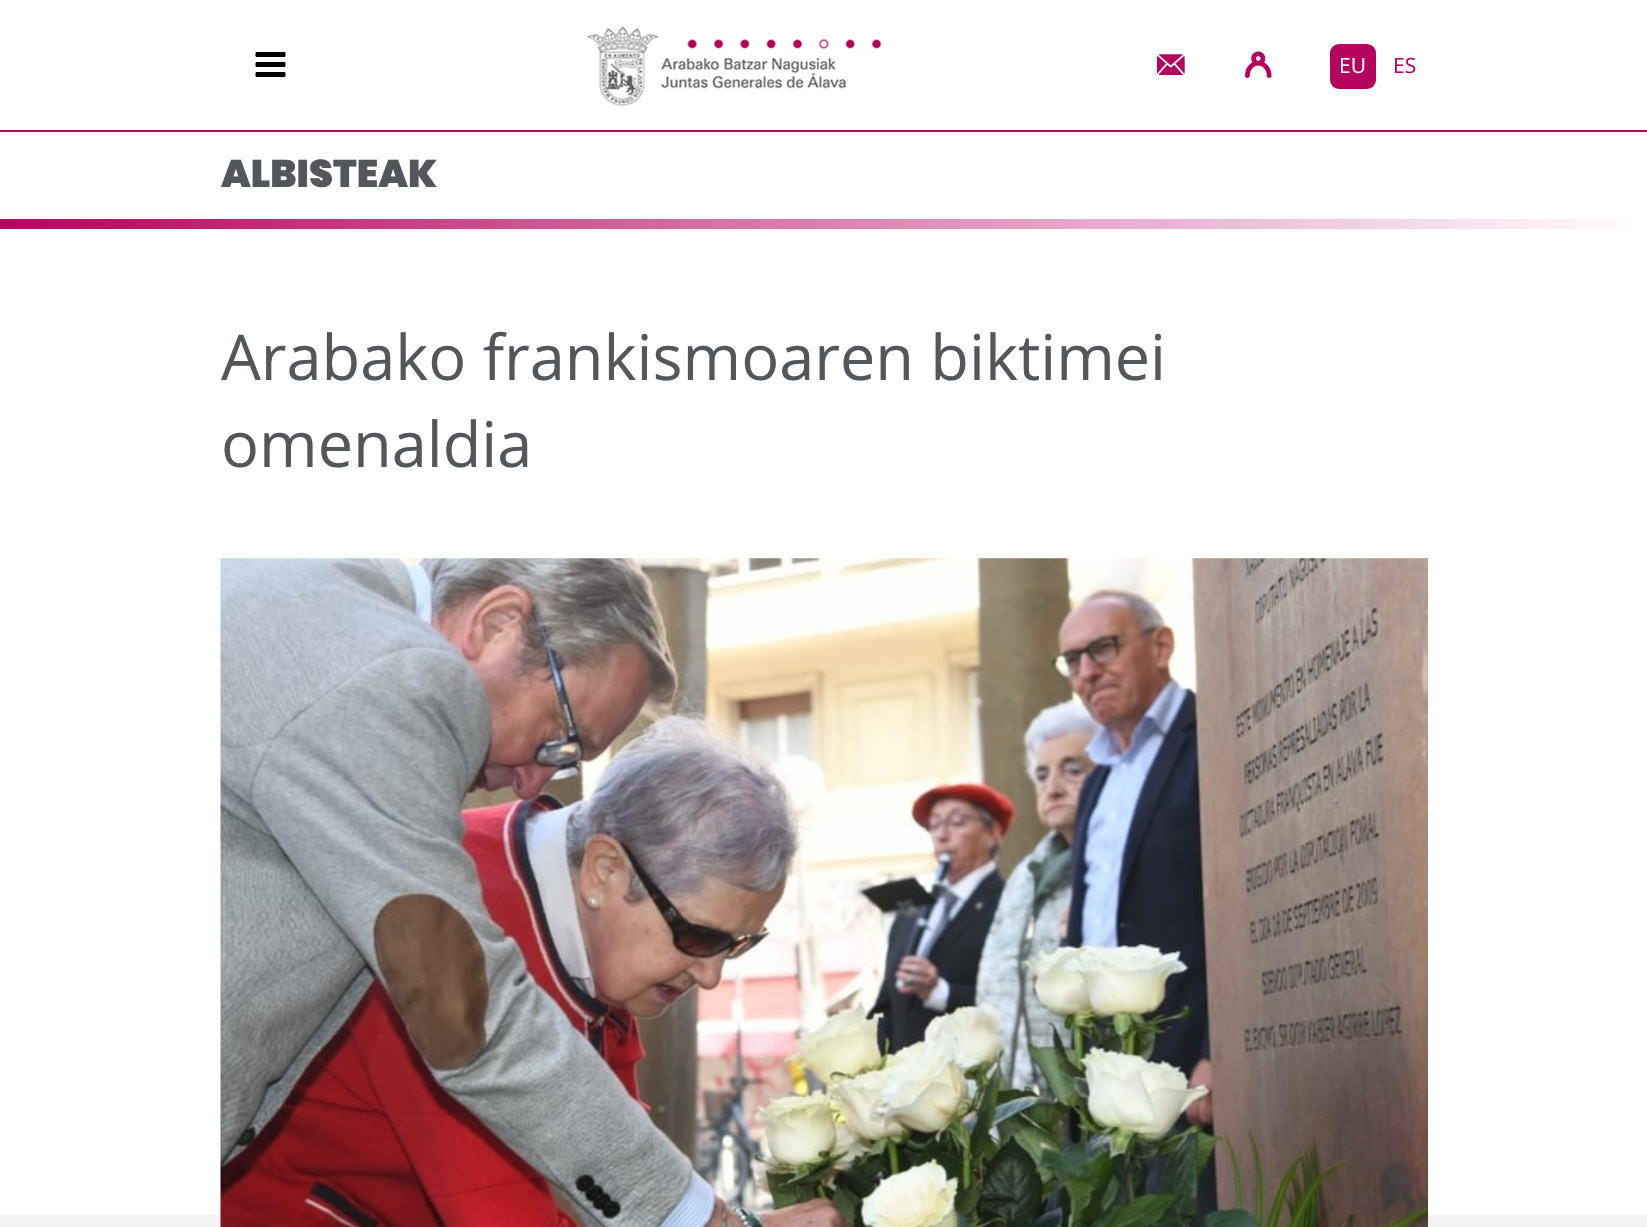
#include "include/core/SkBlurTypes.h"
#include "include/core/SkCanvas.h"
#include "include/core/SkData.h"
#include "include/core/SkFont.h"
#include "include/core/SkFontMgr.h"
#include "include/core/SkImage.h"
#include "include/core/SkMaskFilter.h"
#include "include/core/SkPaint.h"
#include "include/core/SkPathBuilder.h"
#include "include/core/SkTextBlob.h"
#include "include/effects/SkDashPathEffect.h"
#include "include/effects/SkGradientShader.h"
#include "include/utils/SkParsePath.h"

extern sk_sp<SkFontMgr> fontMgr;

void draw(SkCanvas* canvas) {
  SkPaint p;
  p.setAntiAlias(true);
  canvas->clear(SK_ColorWHITE);
  canvas->drawImageRect(SkImages::DeferredFromEncodedData(SkData::MakeFromFileName("images/1.png")), SkRect::MakeLTRB(255, 52, 286, 77), SkSamplingOptions());
  canvas->drawImageRect(SkImages::DeferredFromEncodedData(SkData::MakeFromFileName("images/2.png")), SkRect::MakeLTRB(587, 26, 882, 107), SkSamplingOptions());
  canvas->drawImageRect(SkImages::DeferredFromEncodedData(SkData::MakeFromFileName("images/3.png")), SkRect::MakeLTRB(1157, 54, 1185, 75), SkSamplingOptions());
  canvas->drawImageRect(SkImages::DeferredFromEncodedData(SkData::MakeFromFileName("images/4.png")), SkRect::MakeLTRB(1245, 51, 1272, 78), SkSamplingOptions());
  p.setColor(SkColorSetRGB(182, 2, 95));
  canvas->drawRoundRect(SkRect::MakeLTRB(1330, 44, 1376, 89), 9, 9, p);
  canvas->drawRect(SkRect::MakeLTRB(0, 130, 1647, 132), p);
  {
    const SkColor colors[] = {SK_ColorWHITE, SkColorSetRGB(182, 2, 95)};
    const float stops[] = {0, 1};
    const SkPoint ends[] = {{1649, 224}, {0, 224}};
    p.setShader(SkGradientShader::MakeLinear(ends, colors, stops, 2, SkTileMode::kClamp));
    p.setAlpha(255);
  }
  canvas->drawRect(SkRect::MakeLTRB(0, 219, 1633, 229), p);
  {
    const SkColor colors[] = {SK_ColorWHITE, SK_ColorWHITE, SkColorSetRGB(242, 242, 240), SkColorSetRGB(242, 242, 240)};
    const float stops[] = {0, 0.8f, 0.8f, 1};
    const SkPoint ends[] = {{824, 558}, {824, 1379}};
    p.setShader(SkGradientShader::MakeLinear(ends, colors, stops, 4, SkTileMode::kClamp));
    p.setAlpha(255);
  }
  canvas->drawRect(SkRect::MakeLTRB(0, 1215, 1647, 1227), p);
  canvas->drawImageRect(SkImages::DeferredFromEncodedData(SkData::MakeFromFileName("images/5.png")), SkRect::MakeLTRB(220, 558, 1428, 1227), SkSamplingOptions());
  SkFont font1(fontMgr->matchFamilyStyle("Open Sans", SkFontStyle::Normal()), 21);
  font1.setSubpixel(true);
  p.setShader(nullptr);
  p.setColor(SK_ColorWHITE);
  canvas->drawString("EU", 1339, 73, font1, p);
  p.setColor(SkColorSetRGB(182, 2, 95));
  canvas->drawString("ES", 1393, 73, font1, p);
  SkFont font2(fontMgr->matchFamilyStyle("Poppins", SkFontStyle(900, SkFontStyle::kNormal_Width, SkFontStyle::kUpright_Slant)), 38.5f);
  font2.setSubpixel(true);
  p.setColor(SkColorSetRGB(83, 86, 90));
  canvas->drawString("ALBISTEAK", 221, 187, font2, p);
  SkFont font3(fontMgr->matchFamilyStyle("Open Sans", SkFontStyle::Normal()), 63);
  font3.setSubpixel(true);
  canvas->drawString("Arabako frankismoaren biktimei", 221, 380, font3, p);
  canvas->drawString("omenaldia", 221, 467, font3, p);
}
